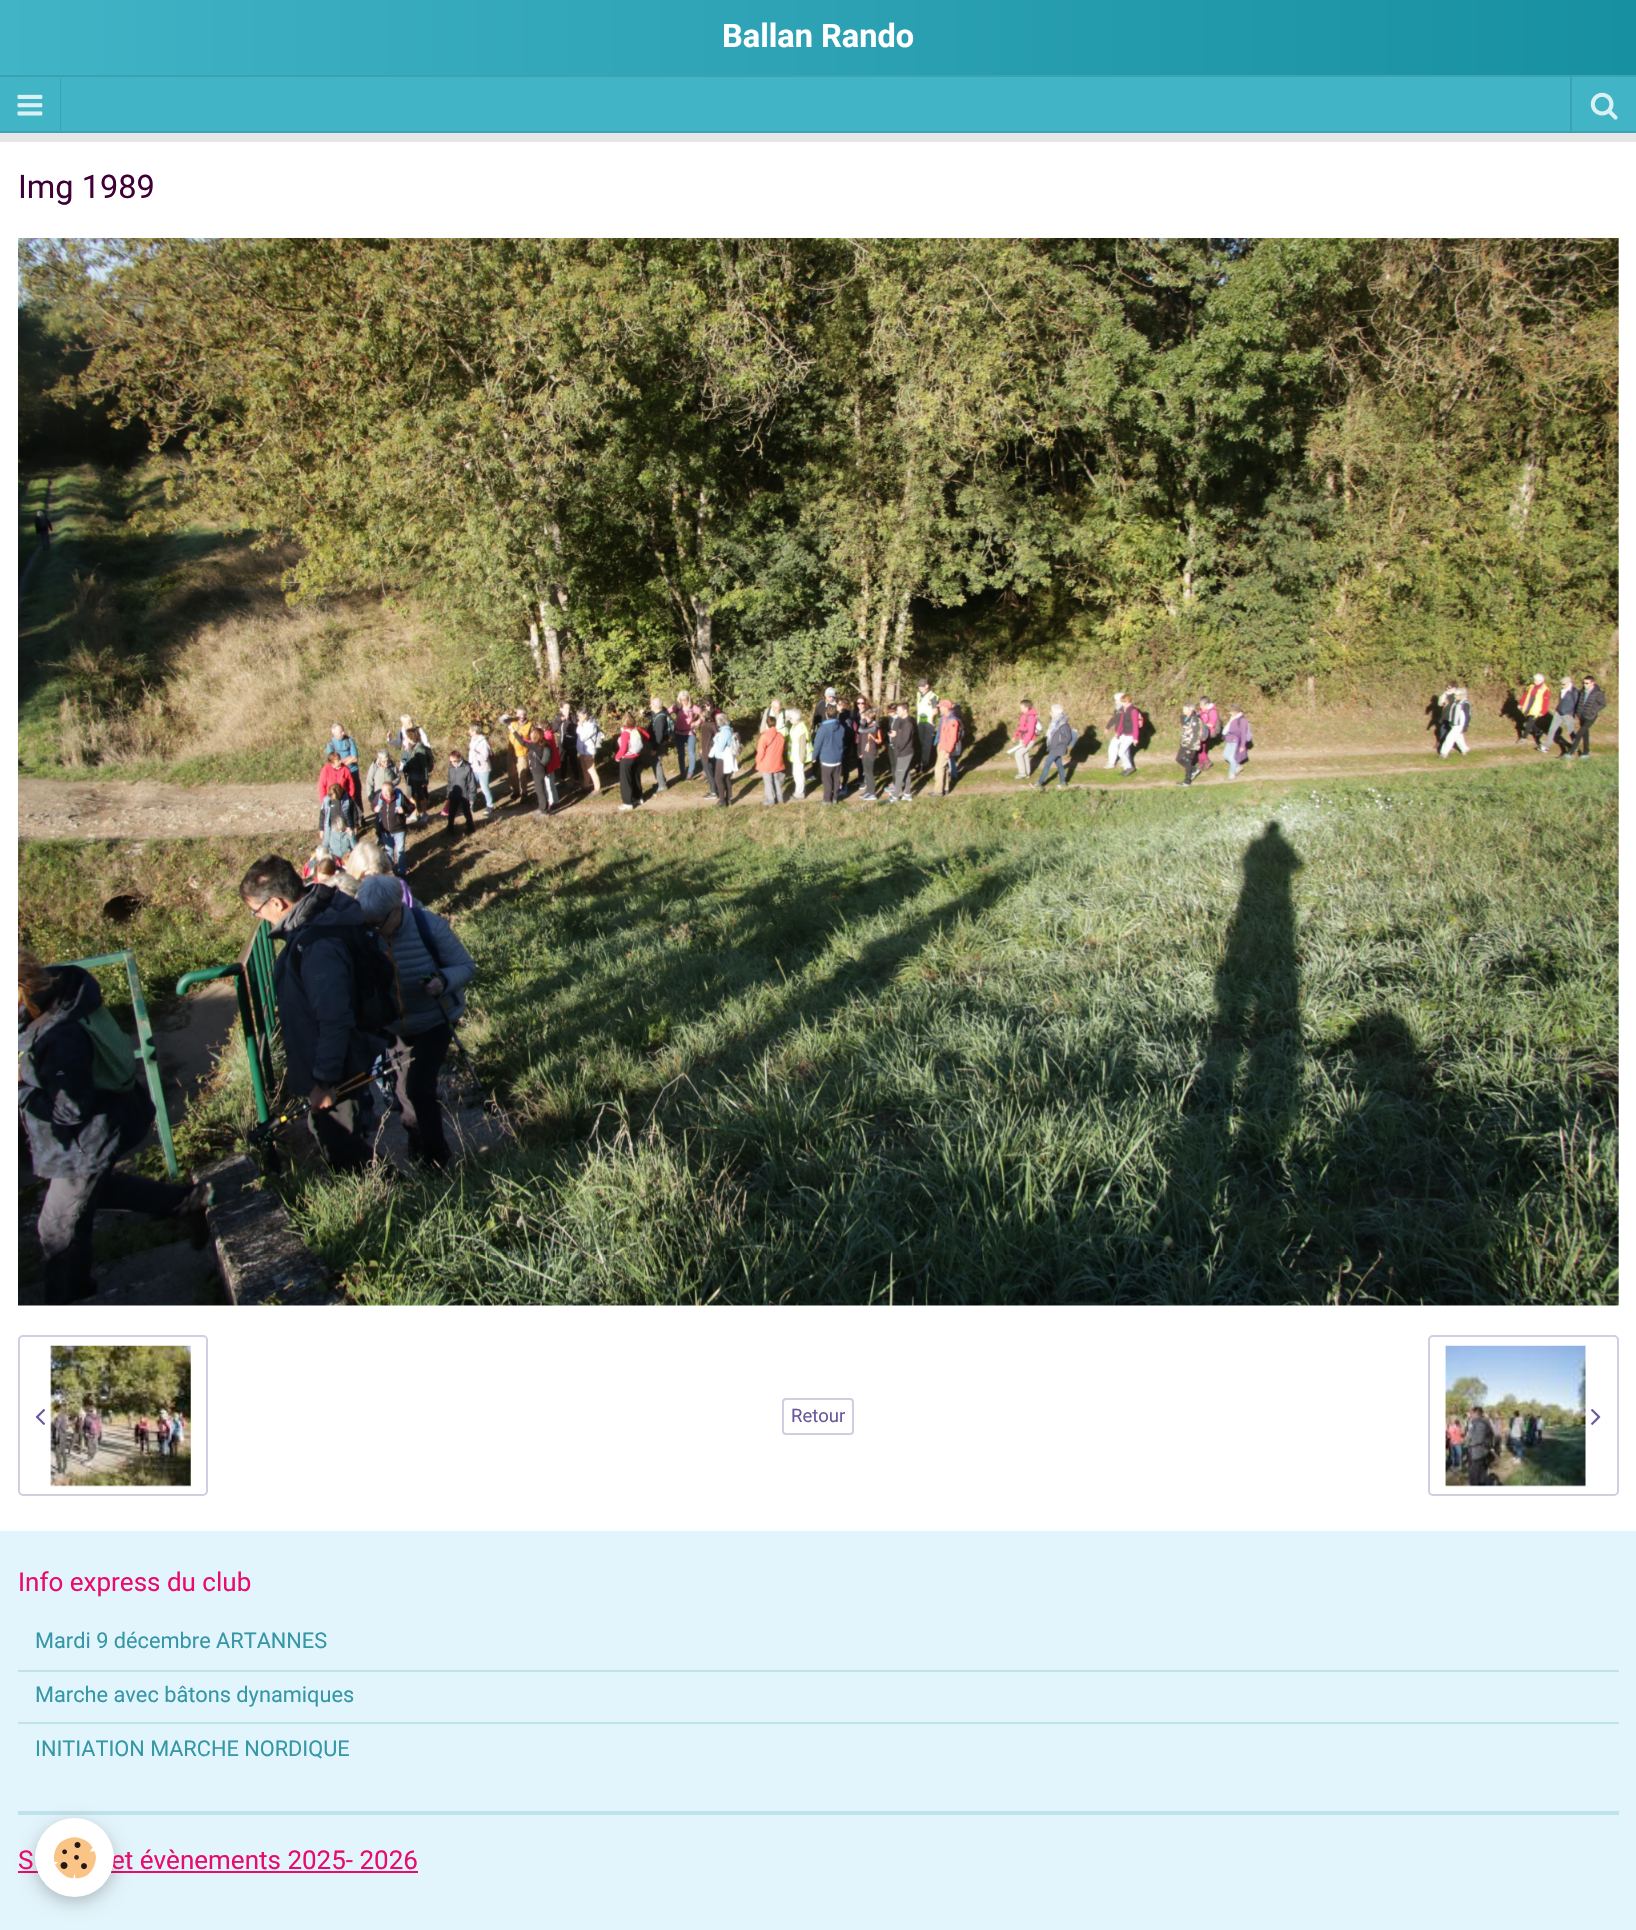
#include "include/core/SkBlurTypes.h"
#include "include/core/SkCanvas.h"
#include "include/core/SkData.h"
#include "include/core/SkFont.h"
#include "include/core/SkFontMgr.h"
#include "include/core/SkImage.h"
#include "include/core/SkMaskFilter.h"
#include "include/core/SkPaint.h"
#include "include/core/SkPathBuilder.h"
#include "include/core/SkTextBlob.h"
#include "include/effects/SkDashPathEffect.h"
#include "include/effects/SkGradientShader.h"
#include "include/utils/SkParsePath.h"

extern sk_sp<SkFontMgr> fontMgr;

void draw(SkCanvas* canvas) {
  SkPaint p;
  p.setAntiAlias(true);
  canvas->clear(SK_ColorWHITE);
  p.setColor(SkColorSetRGB(230, 230, 230));
  canvas->drawRect(SkRect::MakeLTRB(0, 133, 1636, 142), p);
  {
    const SkColor colors[] = {SkColorSetRGB(65, 180, 198), SkColorSetRGB(23, 144, 162)};
    const float stops[] = {0, 1};
    const SkPoint ends[] = {{0, 67}, {1636, 66}};
    p.setShader(SkGradientShader::MakeLinear(ends, colors, stops, 2, SkTileMode::kClamp));
    p.setAlpha(255);
  }
  canvas->drawRect(SkRect::MakeLTRB(0, 0, 1636, 75), p);
  p.setShader(nullptr);
  p.setColor(SkColorSetRGB(65, 180, 198));
  canvas->drawRect(SkRect::MakeLTRB(0, 77, 1636, 131), p);
  p.setColor(SkColorSetRGB(59, 162, 178));
  canvas->drawRect(SkRect::MakeLTRB(0, 75, 1636, 77), p);
  canvas->drawRect(SkRect::MakeLTRB(0, 131, 1636, 133), p);
  canvas->drawPath(SkPathBuilder().moveTo(61, 77).lineTo(61, 131).lineTo(60, 130).lineTo(60, 79).close().detach(), p);
  canvas->drawImageRect(SkImages::DeferredFromEncodedData(SkData::MakeFromFileName("images/1.png")), SkRect::MakeLTRB(17, 94, 43, 116), SkSamplingOptions());
  canvas->drawRect(SkRect::MakeLTRB(1570, 77, 1572, 131), p);
  canvas->drawImageRect(SkImages::DeferredFromEncodedData(SkData::MakeFromFileName("images/2.png")), SkRect::MakeLTRB(1590, 92, 1618, 120), SkSamplingOptions());
  canvas->drawImageRect(SkImages::DeferredFromEncodedData(SkData::MakeFromFileName("images/3.png")), SkRect::MakeLTRB(18, 238, 1619, 1306), SkSamplingOptions());
  canvas->drawImageRect(SkImages::DeferredFromEncodedData(SkData::MakeFromFileName("images/4.png")), SkRect::MakeLTRB(35, 1409, 46, 1425), SkSamplingOptions());
  canvas->drawImageRect(SkImages::DeferredFromEncodedData(SkData::MakeFromFileName("images/5.png")), SkRect::MakeLTRB(50, 1345, 191, 1487), SkSamplingOptions());
  p.setStyle(SkPaint::kStroke_Style);
  p.setStrokeWidth(2);
  p.setColor(SkColorSetRGB(210, 205, 224));
  canvas->drawRoundRect(SkRect::MakeLTRB(19, 1336, 207, 1495), 4, 4, p);
  canvas->drawRoundRect(SkRect::MakeLTRB(783, 1399, 853, 1434), 3, 3, p);
  canvas->drawImageRect(SkImages::DeferredFromEncodedData(SkData::MakeFromFileName("images/6.png")), SkRect::MakeLTRB(1445, 1345, 1586, 1487), SkSamplingOptions());
  canvas->drawImageRect(SkImages::DeferredFromEncodedData(SkData::MakeFromFileName("images/7.png")), SkRect::MakeLTRB(1591, 1409, 1601, 1425), SkSamplingOptions());
  canvas->drawRoundRect(SkRect::MakeLTRB(1429, 1336, 1618, 1495), 4, 4, p);
  p.setStyle(SkPaint::kFill_Style);
  p.setColor(SkColorSetRGB(227, 245, 252));
  canvas->drawRect(SkRect::MakeLTRB(0, 1531, 1636, 1930), p);
  p.setColor(SkColorSetRGB(192, 226, 235));
  canvas->drawRect(SkRect::MakeLTRB(18, 1670, 1619, 1672), p);
  canvas->drawRect(SkRect::MakeLTRB(18, 1722, 1619, 1724), p);
  canvas->drawRect(SkRect::MakeLTRB(18, 1811, 1619, 1815), p);
  p.setColor(SkColorSetRGB(232, 12, 110));
  canvas->drawRect(SkRect::MakeLTRB(18, 1871, 418, 1873), p);
  p.setColor(SkColorSetARGB(61, 0, 0, 0));
  p.setMaskFilter(SkMaskFilter::MakeBlur(kNormal_SkBlurStyle, 9));
  canvas->drawRoundRect(SkRect::MakeLTRB(35, 1824, 114, 1902), 39, 39, p);
  p.setMaskFilter(nullptr);
  SkFont font1(fontMgr->matchFamilyStyle("Roboto", SkFontStyle::Bold()), 32.5f);
  font1.setSubpixel(true);
  p.setColor(SK_ColorWHITE);
  canvas->drawString("Ballan Rando", 722, 47, font1, p);
  SkFont font2(fontMgr->matchFamilyStyle("Roboto", SkFontStyle::Normal()), 32.5f);
  font2.setSubpixel(true);
  p.setColor(SkColorSetRGB(63, 0, 56));
  canvas->drawString("Img 1989", 18, 198, font2, p);
  SkFont font3(fontMgr->matchFamilyStyle("Roboto", SkFontStyle::Normal()), 18.5f);
  font3.setSubpixel(true);
  p.setColor(SkColorSetRGB(106, 89, 153));
  canvas->drawString("Retour", 791, 1422, font3, p);
  SkFont font4(fontMgr->matchFamilyStyle("Roboto", SkFontStyle::Normal()), 26);
  font4.setSubpixel(true);
  p.setColor(SkColorSetRGB(232, 12, 110));
  canvas->drawString("Info express du club", 18, 1591, font4, p);
  SkFont font5(fontMgr->matchFamilyStyle("Roboto", SkFontStyle::Normal()), 21.75f);
  font5.setSubpixel(true);
  p.setColor(SkColorSetRGB(54, 151, 167));
  canvas->drawString("Mardi 9 décembre ARTANNES", 35, 1648, font5, p);
  canvas->drawString("Marche avec bâtons dynamiques", 35, 1702, font5, p);
  canvas->drawString("INITIATION MARCHE NORDIQUE", 35, 1756, font5, p);
  p.setColor(SkColorSetRGB(232, 12, 110));
  canvas->drawString("S", 18, 1869, font4, p);
  canvas->drawString("et évènements 2025- 2026", 111, 1869, font4, p);
  p.setColor(SK_ColorWHITE);
  canvas->drawCircle(74.5f, 1857.5f, 39.5f, p);
  canvas->drawImageRect(SkImages::DeferredFromEncodedData(SkData::MakeFromFileName("images/8.png")), SkRect::MakeLTRB(53, 1837, 96, 1879), SkSamplingOptions());
}
